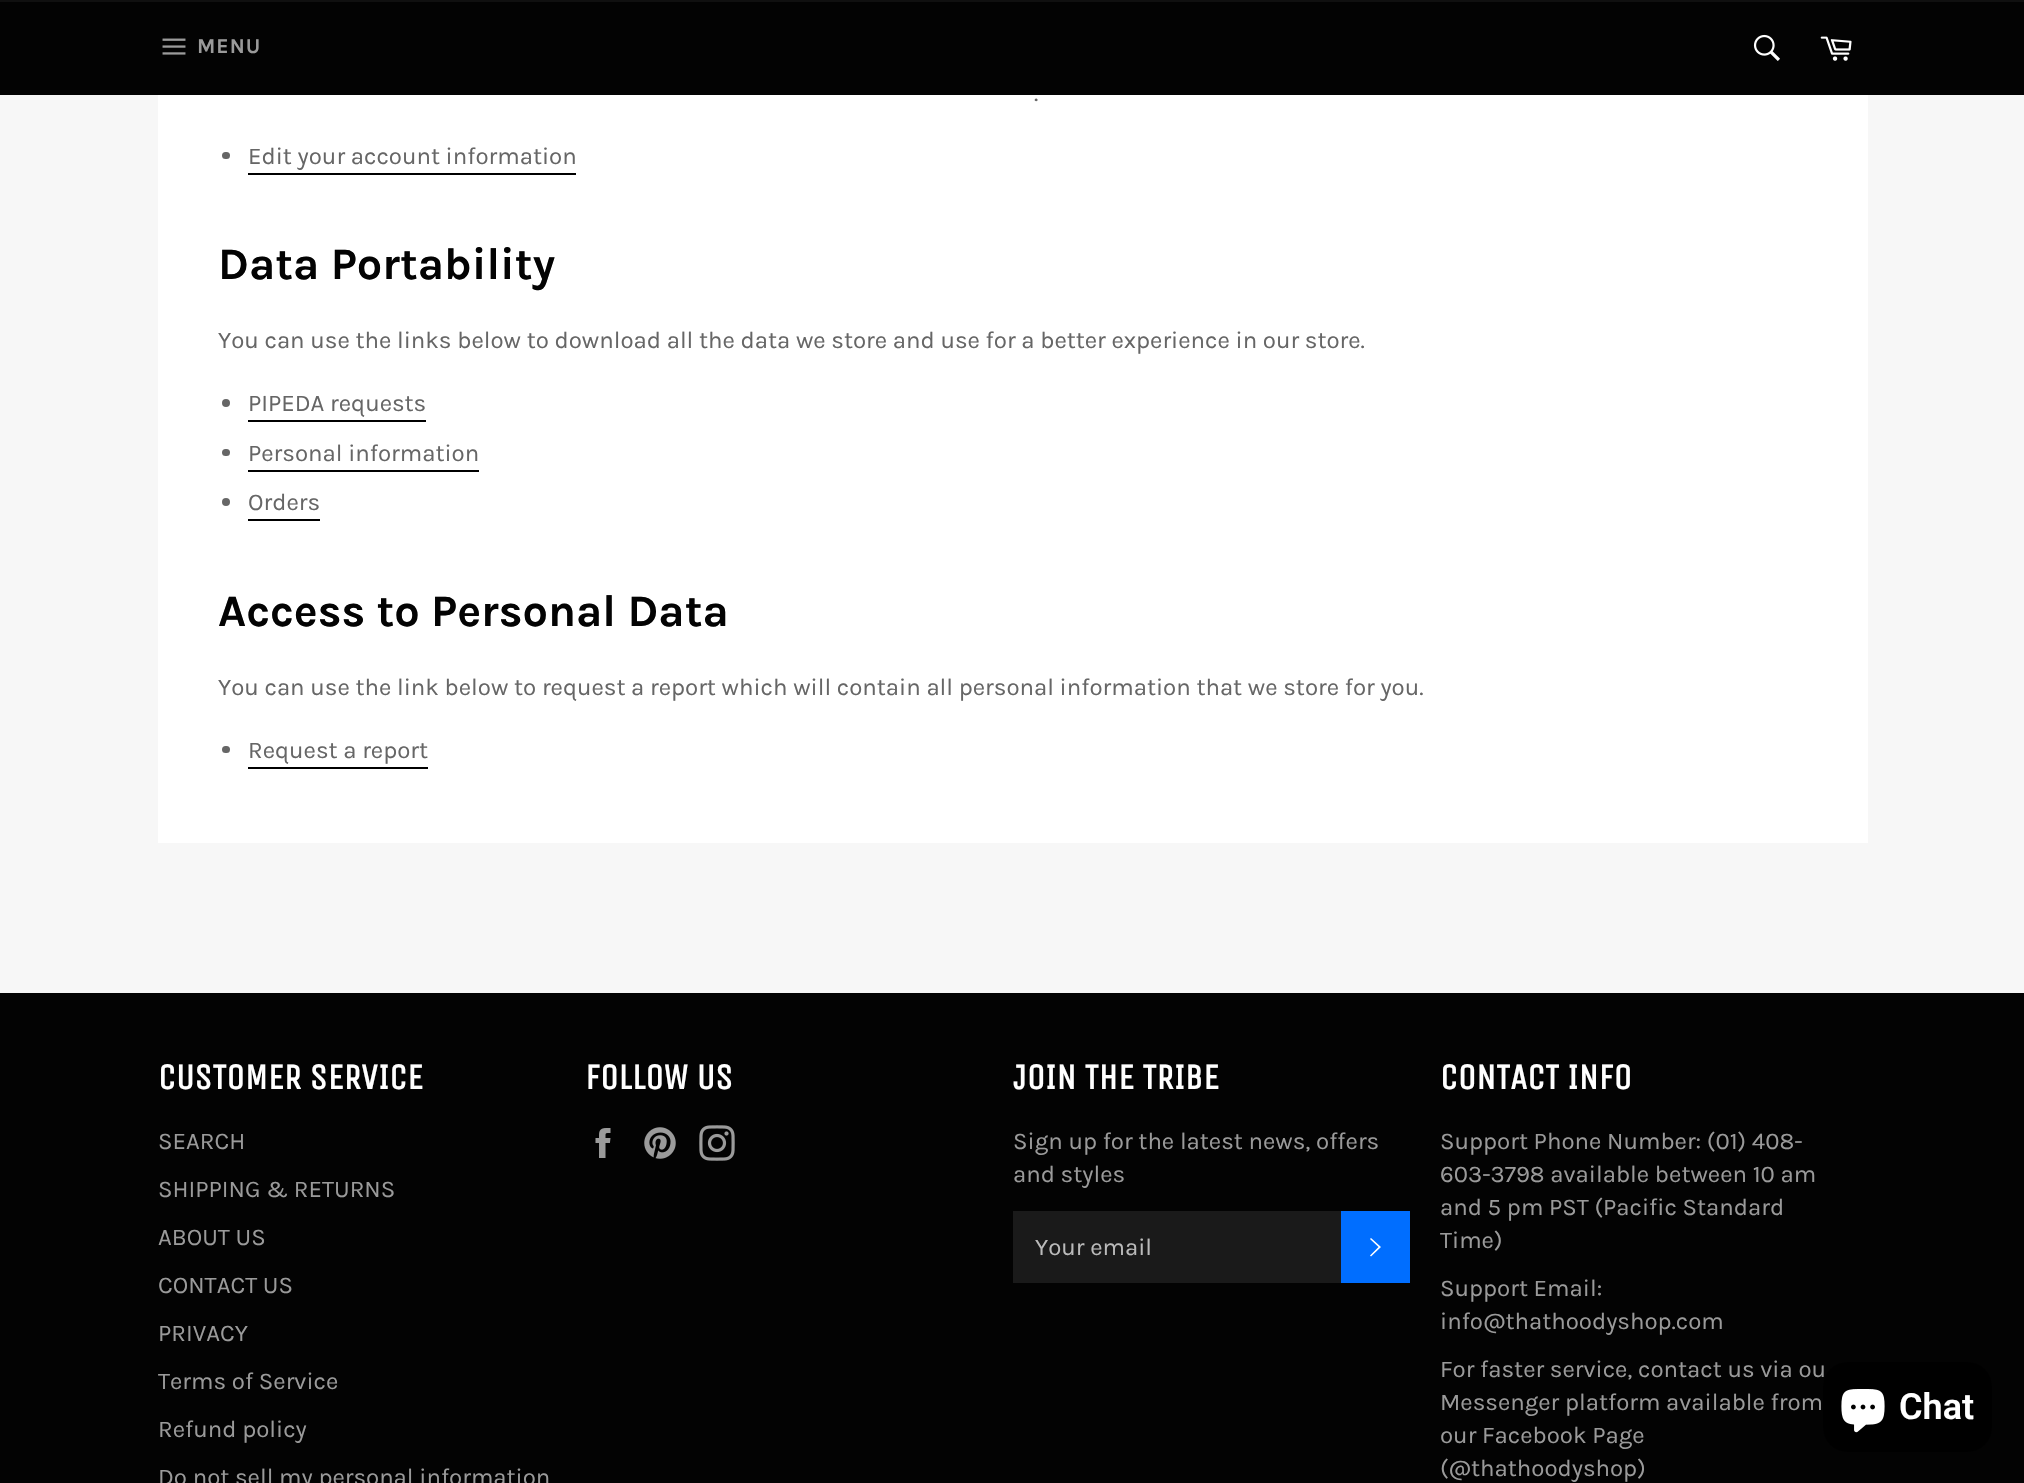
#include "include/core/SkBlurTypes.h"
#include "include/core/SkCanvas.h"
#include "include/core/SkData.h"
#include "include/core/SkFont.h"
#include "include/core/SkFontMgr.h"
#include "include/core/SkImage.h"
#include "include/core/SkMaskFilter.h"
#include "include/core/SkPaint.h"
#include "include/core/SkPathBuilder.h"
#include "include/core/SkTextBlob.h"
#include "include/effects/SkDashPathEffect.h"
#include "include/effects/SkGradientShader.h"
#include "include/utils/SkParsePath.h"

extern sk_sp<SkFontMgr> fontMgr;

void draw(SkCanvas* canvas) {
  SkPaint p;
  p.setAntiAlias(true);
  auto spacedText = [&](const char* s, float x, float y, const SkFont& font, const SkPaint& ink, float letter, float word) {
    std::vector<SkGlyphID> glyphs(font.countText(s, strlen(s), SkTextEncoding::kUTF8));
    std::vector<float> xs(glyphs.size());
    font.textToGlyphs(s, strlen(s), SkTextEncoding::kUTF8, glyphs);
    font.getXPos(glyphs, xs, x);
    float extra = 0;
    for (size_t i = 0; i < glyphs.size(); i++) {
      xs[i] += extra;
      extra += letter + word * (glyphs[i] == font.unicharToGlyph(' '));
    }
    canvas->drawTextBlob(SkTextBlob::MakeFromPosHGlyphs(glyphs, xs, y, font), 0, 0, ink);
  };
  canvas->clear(SkColorSetRGB(247, 247, 247));
  p.setColor(SkColorSetRGB(3, 3, 3));
  canvas->drawRect(SkRect::MakeLTRB(0, 2, 2024, 95), p);
  p.setColor(SkColorSetRGB(16, 16, 16));
  canvas->drawRect(SkRect::MakeLTRB(0, 0, 2024, 2), p);
  canvas->drawImageRect(SkImages::DeferredFromEncodedData(SkData::MakeFromFileName("images/1.png")), SkRect::MakeLTRB(162, 38, 186, 55), SkSamplingOptions());
  canvas->drawImageRect(SkImages::DeferredFromEncodedData(SkData::MakeFromFileName("images/2.png")), SkRect::MakeLTRB(1753, 34, 1780, 61), SkSamplingOptions());
  canvas->drawImageRect(SkImages::DeferredFromEncodedData(SkData::MakeFromFileName("images/3.png")), SkRect::MakeLTRB(1820, 36, 1852, 61), SkSamplingOptions());
  p.setColor(SK_ColorWHITE);
  canvas->drawRect(SkRect::MakeLTRB(158, 95, 1868, 843), p);
  p.setColor(SkColorSetRGB(102, 102, 102));
  canvas->drawRoundRect(SkRect::MakeLTRB(222, 152, 230, 159), 3.5f, 3.5f, p);
  p.setColor(SK_ColorBLACK);
  canvas->drawRect(SkRect::MakeLTRB(248, 173, 576, 175), p);
  p.setColor(SkColorSetRGB(102, 102, 102));
  canvas->drawCircle(226, 403, 4, p);
  p.setColor(SK_ColorBLACK);
  canvas->drawRect(SkRect::MakeLTRB(248, 420, 426, 422), p);
  p.setColor(SkColorSetRGB(102, 102, 102));
  canvas->drawRoundRect(SkRect::MakeLTRB(222, 449, 230, 456), 3.5f, 3.5f, p);
  p.setColor(SK_ColorBLACK);
  canvas->drawRect(SkRect::MakeLTRB(248, 470, 479, 472), p);
  p.setColor(SkColorSetRGB(102, 102, 102));
  canvas->drawCircle(226, 502, 4, p);
  p.setColor(SK_ColorBLACK);
  canvas->drawRect(SkRect::MakeLTRB(248, 519, 320, 521), p);
  p.setColor(SkColorSetRGB(102, 102, 102));
  canvas->drawRoundRect(SkRect::MakeLTRB(222, 746, 230, 753), 3.5f, 3.5f, p);
  p.setColor(SK_ColorBLACK);
  canvas->drawRect(SkRect::MakeLTRB(248, 767, 428, 769), p);
  p.setColor(SkColorSetRGB(3, 3, 3));
  canvas->drawRect(SkRect::MakeLTRB(0, 993, 2024, 1483), p);
  canvas->drawImageRect(SkImages::DeferredFromEncodedData(SkData::MakeFromFileName("images/4.png")), SkRect::MakeLTRB(595, 1128, 611, 1158), SkSamplingOptions());
  canvas->drawImageRect(SkImages::DeferredFromEncodedData(SkData::MakeFromFileName("images/5.png")), SkRect::MakeLTRB(644, 1127, 676, 1159), SkSamplingOptions());
  canvas->drawImageRect(SkImages::DeferredFromEncodedData(SkData::MakeFromFileName("images/6.png")), SkRect::MakeLTRB(699, 1125, 735, 1161), SkSamplingOptions());
  p.setColor(SkColorSetRGB(26, 26, 26));
  canvas->drawRect(SkRect::MakeLTRB(1013, 1211, 1341, 1283), p);
  p.setColor(SkColorSetRGB(0, 110, 255));
  canvas->drawRect(SkRect::MakeLTRB(1341, 1211, 1410, 1283), p);
  p.setColor(SK_ColorWHITE);
  canvas->drawPath(SkPathBuilder().moveTo(1370, 1239).lineTo(1371, 1238).lineTo(1381, 1247).lineTo(1371, 1256.5f).lineTo(1370, 1255.5f).lineTo(1378.5f, 1247).close().detach(), p);
  SkFont font1(fontMgr->matchFamilyStyle("Karla", SkFontStyle::Bold()), 21);
  font1.setSubpixel(true);
  p.setColor(SkColorSetRGB(154, 154, 154));
  spacedText("MENU", 197, 53, font1, p, 1, 0);
  SkFont font2(fontMgr->matchFamilyStyle("Karla", SkFontStyle::Normal()), 24);
  font2.setSubpixel(true);
  p.setColor(SkColorSetRGB(102, 102, 102));
  canvas->drawString(".", 1034, 101, font2, p);
  canvas->drawString("Edit your account information", 248, 164, font2, p);
  SkFont font3(fontMgr->matchFamilyStyle("Karla", SkFontStyle::Bold()), 45);
  font3.setSubpixel(true);
  p.setColor(SkColorSetRGB(3, 3, 3));
  canvas->drawString("Data Portability", 218, 279, font3, p);
  p.setColor(SkColorSetRGB(102, 102, 102));
  canvas->drawString("You can use the links below to download all the data we store and use for a better experience in our store.", 218, 348, font2, p);
  canvas->drawString("PIPEDA requests", 248, 411, font2, p);
  canvas->drawString("Personal information", 248, 461, font2, p);
  canvas->drawString("Orders", 248, 510, font2, p);
  p.setColor(SkColorSetRGB(3, 3, 3));
  canvas->drawString("Access to Personal Data", 218, 626, font3, p);
  p.setColor(SkColorSetRGB(102, 102, 102));
  canvas->drawString("You can use the link below to request a report which will contain all personal information that we store for you.", 218, 695, font2, p);
  canvas->drawString("Request a report", 248, 758, font2, p);
  SkFont font4(fontMgr->matchFamilyStyle("Unica One", SkFontStyle::Bold()), 36);
  font4.setSubpixel(true);
  p.setColor(SK_ColorWHITE);
  canvas->drawString("CUSTOMER SERVICE", 158, 1089, font4, p);
  p.setColor(SkColorSetRGB(154, 154, 154));
  canvas->drawString("SEARCH", 158, 1149, font2, p);
  canvas->drawString("SHIPPING & RETURNS", 158, 1197, font2, p);
  canvas->drawString("ABOUT US", 158, 1245, font2, p);
  canvas->drawString("CONTACT US", 158, 1293, font2, p);
  canvas->drawString("PRIVACY", 158, 1341, font2, p);
  canvas->drawString("Terms of Service", 158, 1389, font2, p);
  canvas->drawString("Refund policy", 158, 1437, font2, p);
  canvas->drawString("Do not sell my personal information", 158, 1485, font2, p);
  p.setColor(SK_ColorWHITE);
  canvas->drawString("FOLLOW US", 585, 1089, font4, p);
  canvas->drawString("JOIN THE TRIBE", 1013, 1089, font4, p);
  p.setColor(SkColorSetRGB(154, 154, 154));
  canvas->drawString("Sign up for the latest news, offers", 1013, 1149, font2, p);
  canvas->drawString("and styles", 1013, 1182, font2, p);
  p.setColor(SkColorSetRGB(186, 186, 186));
  canvas->drawString("Your email", 1035, 1255, font2, p);
  p.setColor(SK_ColorWHITE);
  canvas->drawString("CONTACT INFO", 1440, 1089, font4, p);
  p.setColor(SkColorSetRGB(154, 154, 154));
  canvas->drawString("Support Phone Number: (01) 408-", 1440, 1149, font2, p);
  canvas->drawString("603-3798 available between 10 am", 1440, 1182, font2, p);
  canvas->drawString("and 5 pm PST (Pacific Standard", 1440, 1215, font2, p);
  canvas->drawString("Time)", 1440, 1248, font2, p);
  canvas->drawString("Support Email:", 1440, 1296, font2, p);
  canvas->drawString("info@thathoodyshop.com", 1440, 1329, font2, p);
  canvas->drawString("For faster service, contact us via ou", 1440, 1377, font2, p);
  canvas->drawString("Messenger platform available from", 1440, 1410, font2, p);
  canvas->drawString("our Facebook Page", 1440, 1443, font2, p);
  canvas->drawString("(@thathoodyshop)", 1440, 1476, font2, p);
  p.setColor(SK_ColorBLACK);
  canvas->drawRoundRect(SkRect::MakeLTRB(1823, 1362, 1992, 1452), 24, 24, p);
  canvas->drawImageRect(SkImages::DeferredFromEncodedData(SkData::MakeFromFileName("images/7.png")), SkRect::MakeLTRB(1841, 1389, 1885, 1433), SkSamplingOptions());
  SkFont font5(fontMgr->matchFamilyStyle("Roboto", SkFontStyle(600, SkFontStyle::kNormal_Width, SkFontStyle::kUpright_Slant)), 36);
  font5.setSubpixel(true);
  p.setColor(SK_ColorWHITE);
  canvas->drawString("Chat", 1899, 1419, font5, p);
}
